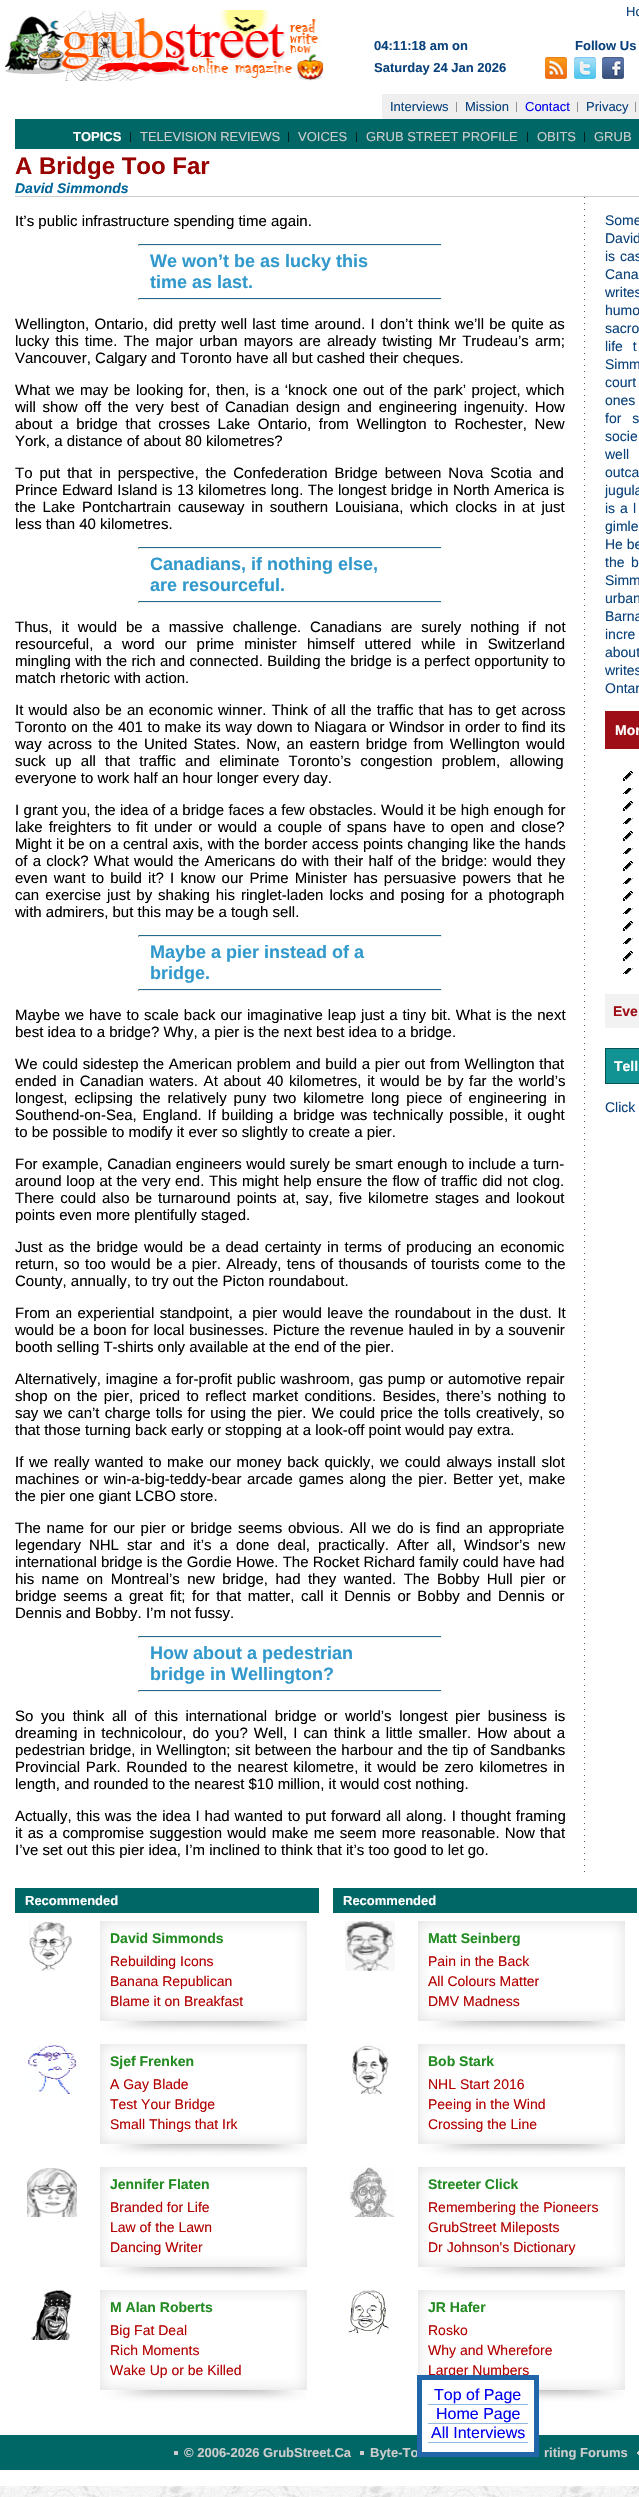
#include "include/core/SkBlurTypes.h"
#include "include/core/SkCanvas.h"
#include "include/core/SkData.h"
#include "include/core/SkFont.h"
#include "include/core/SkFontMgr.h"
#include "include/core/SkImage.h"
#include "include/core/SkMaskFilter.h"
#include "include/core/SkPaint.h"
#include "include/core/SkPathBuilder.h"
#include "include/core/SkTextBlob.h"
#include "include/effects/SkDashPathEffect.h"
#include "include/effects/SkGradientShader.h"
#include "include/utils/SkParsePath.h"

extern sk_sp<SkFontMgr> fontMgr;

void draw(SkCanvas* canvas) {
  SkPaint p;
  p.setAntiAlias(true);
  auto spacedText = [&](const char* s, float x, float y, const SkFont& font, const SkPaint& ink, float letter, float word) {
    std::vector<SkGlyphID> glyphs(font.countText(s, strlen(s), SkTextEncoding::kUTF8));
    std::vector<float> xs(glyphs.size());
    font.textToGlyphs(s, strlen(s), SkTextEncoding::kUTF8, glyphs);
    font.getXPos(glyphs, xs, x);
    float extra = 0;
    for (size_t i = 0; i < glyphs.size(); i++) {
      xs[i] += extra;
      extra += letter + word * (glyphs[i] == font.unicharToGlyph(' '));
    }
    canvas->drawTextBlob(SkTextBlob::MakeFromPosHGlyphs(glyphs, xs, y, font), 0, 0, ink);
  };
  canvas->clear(SK_ColorWHITE);
  canvas->drawImageRect(SkImages::DeferredFromEncodedData(SkData::MakeFromFileName("images/1.png")), SkRect::MakeLTRB(0, 2486, 639, 2497), SkSamplingOptions());
  canvas->drawImageRect(SkImages::DeferredFromEncodedData(SkData::MakeFromFileName("images/2.png")), SkRect::MakeLTRB(5, 10, 324, 81), SkSamplingOptions());
  canvas->drawImageRect(SkImages::DeferredFromEncodedData(SkData::MakeFromFileName("images/3.png")), SkRect::MakeLTRB(545, 57, 567, 79), SkSamplingOptions());
  canvas->drawImageRect(SkImages::DeferredFromEncodedData(SkData::MakeFromFileName("images/4.png")), SkRect::MakeLTRB(574, 57, 596, 79), SkSamplingOptions());
  canvas->drawImageRect(SkImages::DeferredFromEncodedData(SkData::MakeFromFileName("images/5.png")), SkRect::MakeLTRB(602, 57, 624, 79), SkSamplingOptions());
  p.setColor(SkColorSetRGB(239, 239, 239));
  canvas->drawRect(SkRect::MakeLTRB(382, 94, 639, 119), p);
  p.setColor(SkColorSetRGB(147, 147, 147));
  canvas->drawRect(SkRect::MakeLTRB(456, 102, 457, 112), p);
  canvas->drawRect(SkRect::MakeLTRB(516, 102, 517, 112), p);
  canvas->drawRect(SkRect::MakeLTRB(577, 102, 578, 112), p);
  canvas->drawRect(SkRect::MakeLTRB(635, 102, 636, 112), p);
  p.setColor(SkColorSetRGB(0, 102, 102));
  canvas->drawRect(SkRect::MakeLTRB(15, 119, 639, 149), p);
  p.setColor(SkColorSetRGB(1, 34, 34));
  canvas->drawRect(SkRect::MakeLTRB(130, 132, 131, 142), p);
  canvas->drawRect(SkRect::MakeLTRB(288, 132, 289, 142), p);
  canvas->drawRect(SkRect::MakeLTRB(356, 132, 357, 142), p);
  canvas->drawRect(SkRect::MakeLTRB(527, 132, 528, 142), p);
  canvas->drawRect(SkRect::MakeLTRB(584, 132, 585, 142), p);
  p.setColor(SkColorSetRGB(204, 204, 204));
  canvas->drawRect(SkRect::MakeLTRB(15, 196, 639, 197), p);
  canvas->drawImageRect(SkImages::DeferredFromEncodedData(SkData::MakeFromFileName("images/6.png")), SkRect::MakeLTRB(584, 197, 585, 1872), SkSamplingOptions());
  p.setColor(SkColorSetRGB(35, 107, 142));
  canvas->drawRect(SkRect::MakeLTRB(138, 244, 442, 245), p);
  p.setColor(SkColorSetRGB(238, 238, 238));
  canvas->drawRect(SkRect::MakeLTRB(441, 244, 442, 246), p);
  canvas->drawRect(SkRect::MakeLTRB(138, 245, 442, 246), p);
  p.setColor(SkColorSetRGB(159, 159, 159));
  canvas->drawRect(SkRect::MakeLTRB(138, 244, 139, 246), p);
  p.setColor(SkColorSetRGB(35, 107, 142));
  canvas->drawRect(SkRect::MakeLTRB(138, 298, 442, 299), p);
  p.setColor(SkColorSetRGB(238, 238, 238));
  canvas->drawRect(SkRect::MakeLTRB(441, 298, 442, 300), p);
  canvas->drawRect(SkRect::MakeLTRB(138, 299, 442, 300), p);
  p.setColor(SkColorSetRGB(159, 159, 159));
  canvas->drawRect(SkRect::MakeLTRB(138, 298, 139, 300), p);
  p.setColor(SkColorSetRGB(35, 107, 142));
  canvas->drawRect(SkRect::MakeLTRB(138, 547, 442, 548), p);
  p.setColor(SkColorSetRGB(238, 238, 238));
  canvas->drawRect(SkRect::MakeLTRB(441, 547, 442, 549), p);
  canvas->drawRect(SkRect::MakeLTRB(138, 548, 442, 549), p);
  p.setColor(SkColorSetRGB(159, 159, 159));
  canvas->drawRect(SkRect::MakeLTRB(138, 547, 139, 549), p);
  p.setColor(SkColorSetRGB(35, 107, 142));
  canvas->drawRect(SkRect::MakeLTRB(138, 601, 442, 602), p);
  p.setColor(SkColorSetRGB(238, 238, 238));
  canvas->drawRect(SkRect::MakeLTRB(441, 601, 442, 603), p);
  canvas->drawRect(SkRect::MakeLTRB(138, 602, 442, 603), p);
  p.setColor(SkColorSetRGB(159, 159, 159));
  canvas->drawRect(SkRect::MakeLTRB(138, 601, 139, 603), p);
  p.setColor(SkColorSetRGB(35, 107, 142));
  canvas->drawRect(SkRect::MakeLTRB(138, 935, 442, 936), p);
  p.setColor(SkColorSetRGB(238, 238, 238));
  canvas->drawRect(SkRect::MakeLTRB(441, 935, 442, 937), p);
  canvas->drawRect(SkRect::MakeLTRB(138, 936, 442, 937), p);
  p.setColor(SkColorSetRGB(159, 159, 159));
  canvas->drawRect(SkRect::MakeLTRB(138, 935, 139, 937), p);
  p.setColor(SkColorSetRGB(35, 107, 142));
  canvas->drawRect(SkRect::MakeLTRB(138, 989, 442, 990), p);
  p.setColor(SkColorSetRGB(238, 238, 238));
  canvas->drawRect(SkRect::MakeLTRB(441, 989, 442, 991), p);
  canvas->drawRect(SkRect::MakeLTRB(138, 990, 442, 991), p);
  p.setColor(SkColorSetRGB(159, 159, 159));
  canvas->drawRect(SkRect::MakeLTRB(138, 989, 139, 991), p);
  p.setColor(SkColorSetRGB(35, 107, 142));
  canvas->drawRect(SkRect::MakeLTRB(138, 1636, 442, 1637), p);
  p.setColor(SkColorSetRGB(238, 238, 238));
  canvas->drawRect(SkRect::MakeLTRB(441, 1636, 442, 1638), p);
  canvas->drawRect(SkRect::MakeLTRB(138, 1637, 442, 1638), p);
  p.setColor(SkColorSetRGB(159, 159, 159));
  canvas->drawRect(SkRect::MakeLTRB(138, 1636, 139, 1638), p);
  p.setColor(SkColorSetRGB(35, 107, 142));
  canvas->drawRect(SkRect::MakeLTRB(138, 1690, 442, 1691), p);
  p.setColor(SkColorSetRGB(238, 238, 238));
  canvas->drawRect(SkRect::MakeLTRB(441, 1690, 442, 1692), p);
  canvas->drawRect(SkRect::MakeLTRB(138, 1691, 442, 1692), p);
  p.setColor(SkColorSetRGB(159, 159, 159));
  canvas->drawRect(SkRect::MakeLTRB(138, 1690, 139, 1692), p);
  p.setColor(SkColorSetRGB(0, 102, 102));
  canvas->drawRect(SkRect::MakeLTRB(15, 1888, 319, 1913), p);
  canvas->drawImageRect(SkImages::DeferredFromEncodedData(SkData::MakeFromFileName("images/7.png")), SkRect::MakeLTRB(29, 1921, 72, 1971), SkSamplingOptions());
  canvas->drawImageRect(SkImages::DeferredFromEncodedData(SkData::MakeFromFileName("images/8.png")), SkRect::MakeLTRB(100, 1921, 307, 2033), SkSamplingOptions());
  canvas->drawImageRect(SkImages::DeferredFromEncodedData(SkData::MakeFromFileName("images/9.png")), SkRect::MakeLTRB(27, 2045, 77, 2094), SkSamplingOptions());
  canvas->drawImageRect(SkImages::DeferredFromEncodedData(SkData::MakeFromFileName("images/8.png")), SkRect::MakeLTRB(100, 2044, 307, 2156), SkSamplingOptions());
  canvas->drawImageRect(SkImages::DeferredFromEncodedData(SkData::MakeFromFileName("images/10.png")), SkRect::MakeLTRB(27, 2168, 77, 2217), SkSamplingOptions());
  canvas->drawImageRect(SkImages::DeferredFromEncodedData(SkData::MakeFromFileName("images/8.png")), SkRect::MakeLTRB(100, 2167, 307, 2279), SkSamplingOptions());
  canvas->drawImageRect(SkImages::DeferredFromEncodedData(SkData::MakeFromFileName("images/11.png")), SkRect::MakeLTRB(31, 2290, 72, 2340), SkSamplingOptions());
  canvas->drawImageRect(SkImages::DeferredFromEncodedData(SkData::MakeFromFileName("images/8.png")), SkRect::MakeLTRB(100, 2290, 307, 2402), SkSamplingOptions());
  p.setColor(SkColorSetRGB(158, 14, 23));
  canvas->drawRect(SkRect::MakeLTRB(605, 711, 639, 749), p);
  canvas->drawImageRect(SkImages::DeferredFromEncodedData(SkData::MakeFromFileName("images/12.png")), SkRect::MakeLTRB(623, 771, 633, 781), SkSamplingOptions());
  canvas->drawImageRect(SkImages::DeferredFromEncodedData(SkData::MakeFromFileName("images/13.png")), SkRect::MakeLTRB(623, 788, 633, 794), SkSamplingOptions());
  canvas->drawImageRect(SkImages::DeferredFromEncodedData(SkData::MakeFromFileName("images/12.png")), SkRect::MakeLTRB(623, 801, 633, 811), SkSamplingOptions());
  canvas->drawImageRect(SkImages::DeferredFromEncodedData(SkData::MakeFromFileName("images/13.png")), SkRect::MakeLTRB(623, 818, 633, 824), SkSamplingOptions());
  canvas->drawImageRect(SkImages::DeferredFromEncodedData(SkData::MakeFromFileName("images/12.png")), SkRect::MakeLTRB(623, 831, 633, 841), SkSamplingOptions());
  canvas->drawImageRect(SkImages::DeferredFromEncodedData(SkData::MakeFromFileName("images/13.png")), SkRect::MakeLTRB(623, 848, 633, 854), SkSamplingOptions());
  canvas->drawImageRect(SkImages::DeferredFromEncodedData(SkData::MakeFromFileName("images/12.png")), SkRect::MakeLTRB(623, 861, 633, 871), SkSamplingOptions());
  canvas->drawImageRect(SkImages::DeferredFromEncodedData(SkData::MakeFromFileName("images/13.png")), SkRect::MakeLTRB(623, 878, 633, 884), SkSamplingOptions());
  canvas->drawImageRect(SkImages::DeferredFromEncodedData(SkData::MakeFromFileName("images/12.png")), SkRect::MakeLTRB(623, 891, 633, 901), SkSamplingOptions());
  canvas->drawImageRect(SkImages::DeferredFromEncodedData(SkData::MakeFromFileName("images/13.png")), SkRect::MakeLTRB(623, 908, 633, 914), SkSamplingOptions());
  canvas->drawImageRect(SkImages::DeferredFromEncodedData(SkData::MakeFromFileName("images/12.png")), SkRect::MakeLTRB(623, 921, 633, 931), SkSamplingOptions());
  canvas->drawImageRect(SkImages::DeferredFromEncodedData(SkData::MakeFromFileName("images/13.png")), SkRect::MakeLTRB(623, 938, 633, 944), SkSamplingOptions());
  canvas->drawImageRect(SkImages::DeferredFromEncodedData(SkData::MakeFromFileName("images/12.png")), SkRect::MakeLTRB(623, 951, 633, 961), SkSamplingOptions());
  canvas->drawImageRect(SkImages::DeferredFromEncodedData(SkData::MakeFromFileName("images/13.png")), SkRect::MakeLTRB(623, 968, 633, 974), SkSamplingOptions());
  p.setColor(SkColorSetRGB(242, 242, 242));
  canvas->drawRect(SkRect::MakeLTRB(605, 994, 639, 1028), p);
  p.setColor(SkColorSetRGB(18, 147, 147));
  canvas->drawRect(SkRect::MakeLTRB(605.5f, 1048.5f, 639.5f, 1083.5f), p);
  p.setStyle(SkPaint::kStroke_Style);
  p.setStrokeWidth(1);
  p.setColor(SkColorSetRGB(0, 83, 83));
  canvas->drawRect(SkRect::MakeLTRB(605.5f, 1048.5f, 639.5f, 1083.5f), p);
  p.setStyle(SkPaint::kFill_Style);
  p.setColor(SkColorSetRGB(0, 102, 102));
  canvas->drawRect(SkRect::MakeLTRB(333, 1888, 637, 1913), p);
  canvas->drawImageRect(SkImages::DeferredFromEncodedData(SkData::MakeFromFileName("images/14.png")), SkRect::MakeLTRB(345, 1921, 395, 1971), SkSamplingOptions());
  canvas->drawImageRect(SkImages::DeferredFromEncodedData(SkData::MakeFromFileName("images/8.png")), SkRect::MakeLTRB(418, 1921, 625, 2033), SkSamplingOptions());
  canvas->drawImageRect(SkImages::DeferredFromEncodedData(SkData::MakeFromFileName("images/15.png")), SkRect::MakeLTRB(352, 2045, 389, 2094), SkSamplingOptions());
  canvas->drawImageRect(SkImages::DeferredFromEncodedData(SkData::MakeFromFileName("images/8.png")), SkRect::MakeLTRB(418, 2044, 625, 2156), SkSamplingOptions());
  canvas->drawImageRect(SkImages::DeferredFromEncodedData(SkData::MakeFromFileName("images/16.png")), SkRect::MakeLTRB(349, 2167, 395, 2217), SkSamplingOptions());
  canvas->drawImageRect(SkImages::DeferredFromEncodedData(SkData::MakeFromFileName("images/8.png")), SkRect::MakeLTRB(418, 2167, 625, 2279), SkSamplingOptions());
  canvas->drawImageRect(SkImages::DeferredFromEncodedData(SkData::MakeFromFileName("images/17.png")), SkRect::MakeLTRB(345, 2290, 389, 2334), SkSamplingOptions());
  canvas->drawImageRect(SkImages::DeferredFromEncodedData(SkData::MakeFromFileName("images/8.png")), SkRect::MakeLTRB(418, 2290, 625, 2402), SkSamplingOptions());
  canvas->drawRect(SkRect::MakeLTRB(0, 2435, 639, 2470), p);
  p.setColor(SkColorSetRGB(204, 204, 204));
  canvas->drawRect(SkRect::MakeLTRB(174, 2451, 178, 2455), p);
  canvas->drawRect(SkRect::MakeLTRB(360, 2451, 364, 2455), p);
  canvas->drawImageRect(SkImages::DeferredFromEncodedData(SkData::MakeFromFileName("images/18.png")), SkRect::MakeLTRB(637, 2451, 639, 2455), SkSamplingOptions());
  SkFont font1(fontMgr->matchFamilyStyle("Liberation Sans", SkFontStyle::Normal()), 13);
  font1.setSubpixel(true);
  p.setColor(SkColorSetRGB(10, 66, 123));
  canvas->drawString("Ho", 626, 16, font1, p);
  SkFont font2(fontMgr->matchFamilyStyle("Liberation Sans", SkFontStyle::Bold()), 13);
  font2.setSubpixel(true);
  canvas->drawString("04:11:18 am on", 374, 50, font2, p);
  canvas->drawString("Saturday 24 Jan 2026", 374, 72, font2, p);
  canvas->drawString("Follow Us", 575, 50, font2, p);
  canvas->drawString("Interviews", 390, 111, font1, p);
  canvas->drawString("Mission", 465, 111, font1, p);
  p.setColor(SkColorSetRGB(0, 0, 238));
  canvas->drawString("Contact", 525, 111, font1, p);
  p.setColor(SkColorSetRGB(10, 66, 123));
  canvas->drawString("Privacy", 586, 111, font1, p);
  p.setColor(SK_ColorWHITE);
  canvas->drawString("TOPICS", 73, 141, font2, p);
  p.setColor(SkColorSetRGB(204, 204, 204));
  canvas->drawString("TELEVISION REVIEWS", 140, 141, font1, p);
  canvas->drawString("VOICES", 298, 141, font1, p);
  canvas->drawString("GRUB STREET PROFILE", 366, 141, font1, p);
  canvas->drawString("OBITS", 537, 141, font1, p);
  canvas->drawString("GRUB", 594, 141, font1, p);
  SkFont font3(fontMgr->matchFamilyStyle("Liberation Sans", SkFontStyle::Bold()), 24);
  font3.setSubpixel(true);
  p.setColor(SkColorSetRGB(153, 0, 0));
  canvas->drawString("A Bridge Too Far", 15, 174, font3, p);
  SkFont font4(fontMgr->matchFamilyStyle("Liberation Sans", SkFontStyle::BoldItalic()), 14);
  font4.setSubpixel(true);
  p.setColor(SkColorSetRGB(0, 102, 153));
  canvas->drawString("David Simmonds", 15, 193, font4, p);
  SkFont font5(fontMgr->matchFamilyStyle("Liberation Sans", SkFontStyle::Normal()), 15);
  font5.setSubpixel(true);
  p.setColor(SK_ColorBLACK);
  canvas->drawString("It’s public infrastructure spending time again.", 15, 226, font5, p);
  SkFont font6(fontMgr->matchFamilyStyle("Liberation Sans", SkFontStyle::Bold()), 18);
  font6.setSubpixel(true);
  p.setColor(SkColorSetRGB(50, 153, 204));
  canvas->drawString("We won’t be as lucky this", 150, 267, font6, p);
  canvas->drawString("time as last.", 150, 288, font6, p);
  p.setColor(SK_ColorBLACK);
  spacedText("Wellington, Ontario, did pretty well last time around. I don’t think we’ll be quite as", 15, 329, font5, p, 0, 1.1f);
  spacedText("lucky this time. The major urban mayors are already twisting Mr Trudeau’s arm;", 15, 346, font5, p, 0, 2);
  canvas->drawString("Vancouver, Calgary and Toronto have all but cashed their cheques.", 15, 363, font5, p);
  spacedText("What we may be looking for, then, is a ‘knock one out of the park’ project, which", 15, 395, font5, p, 0, 1.25f);
  spacedText("will show off the very best of Canadian design and engineering ingenuity. How", 15, 412, font5, p, 0, 2.6f);
  spacedText("about a bridge that crosses Lake Ontario, from Wellington to Rochester, New", 15, 429, font5, p, 0, 3.5f);
  canvas->drawString("York, a distance of about 80 kilometres?", 15, 446, font5, p);
  spacedText("To put that in perspective, the Confederation Bridge between Nova Scotia and", 15, 478, font5, p, 0, 2.75f);
  spacedText("Prince Edward Island is 13 kilometres long. The longest bridge in North America is", 15, 495, font5, p, 0, 0.25f);
  spacedText("the Lake Pontchartrain causeway in southern Louisiana, which clocks in at just", 15, 512, font5, p, 0, 2.6f);
  canvas->drawString("less than 40 kilometres.", 15, 529, font5, p);
  p.setColor(SkColorSetRGB(50, 153, 204));
  canvas->drawString("Canadians, if nothing else,", 150, 570, font6, p);
  canvas->drawString("are resourceful.", 150, 591, font6, p);
  p.setColor(SK_ColorBLACK);
  spacedText("Thus, it would be a massive challenge. Canadians are surely nothing if not", 15, 632, font5, p, 0, 4.75f);
  spacedText("resourceful, a word our prime minister himself uttered while in Switzerland", 15, 649, font5, p, 0, 6);
  spacedText("mingling with the rich and connected. Building the bridge is a perfect opportunity to", 15, 666, font5, p, 0, 0.2f);
  canvas->drawString("match rhetoric with action.", 15, 683, font5, p);
  spacedText("It would also be an economic winner. Think of all the traffic that has to get across", 15, 715, font5, p, 0, 0.9f);
  spacedText("Toronto on the 401 to make its way down to Niagara or Windsor in order to find its", 15, 732, font5, p, 0, 0.4f);
  spacedText("way across to the United States. Now, an eastern bridge from Wellington would", 15, 749, font5, p, 0, 2);
  spacedText("suck up all that traffic and eliminate Toronto’s congestion problem, allowing", 15, 766, font5, p, 0, 5);
  canvas->drawString("everyone to work half an hour longer every day.", 15, 783, font5, p);
  spacedText("I grant you, the idea of a bridge faces a few obstacles. Would it be high enough for", 15, 815, font5, p, 0, 0.2f);
  spacedText("lake freighters to fit under or would a couple of spans have to open and close?", 15, 832, font5, p, 0, 2);
  spacedText("Might it be on a central axis, with the border access points changing like the hands", 15, 849, font5, p, 0, 0.25f);
  spacedText("of a clock? What would the Americans do with their half of the bridge: would they", 15, 866, font5, p, 0, 1);
  spacedText("even want to build it? I know our Prime Minister has persuasive powers that he", 15, 883, font5, p, 0, 2);
  spacedText("can exercise just by shaking his ringlet-laden locks and posing for a photograph", 15, 900, font5, p, 0, 1.8f);
  canvas->drawString("with admirers, but this may be a tough sell.", 15, 917, font5, p);
  p.setColor(SkColorSetRGB(50, 153, 204));
  canvas->drawString("Maybe a pier instead of a", 150, 958, font6, p);
  canvas->drawString("bridge.", 150, 979, font6, p);
  p.setColor(SK_ColorBLACK);
  spacedText("Maybe we have to scale back our imaginative leap just a tiny bit. What is the next", 15, 1020, font5, p, 0, 0.75f);
  canvas->drawString("best idea to a bridge? Why, a pier is the next best idea to a bridge.", 15, 1037, font5, p);
  spacedText("We could sidestep the American problem and build a pier out from Wellington that", 15, 1069, font5, p, 0, 0.5f);
  spacedText("ended in Canadian waters. At about 40 kilometres, it would be by far the world’s", 15, 1086, font5, p, 0, 1.5f);
  spacedText("longest, eclipsing the relatively puny two kilometre long piece of engineering in", 15, 1103, font5, p, 0, 2.75f);
  spacedText("Southend-on-Sea, England. If building a bridge was technically possible, it ought", 15, 1120, font5, p, 0, 1.6f);
  canvas->drawString("to be possible to modify it ever so slightly to create a pier.", 15, 1137, font5, p);
  spacedText("For example, Canadian engineers would surely be smart enough to include a turn-", 15, 1169, font5, p, 0, 0.25f);
  spacedText("around loop at the very end. This might help ensure the flow of traffic did not clog.", 15, 1186, font5, p, 0, 0.5f);
  spacedText("There could also be turnaround points at, say, five kilometre stages and lookout", 15, 1203, font5, p, 0, 1.8f);
  canvas->drawString("points even more plentifully staged.", 15, 1220, font5, p);
  spacedText("Just as the bridge would be a dead certainty in terms of producing an economic", 15, 1252, font5, p, 0, 1.6f);
  spacedText("return, so too would be a pier. Already, tens of thousands of tourists come to the", 15, 1269, font5, p, 0, 1.25f);
  canvas->drawString("County, annually, to try out the Picton roundabout.", 15, 1286, font5, p);
  spacedText("From an experiential standpoint, a pier would leave the roundabout in the dust. It", 15, 1318, font5, p, 0, 1.25f);
  spacedText("would be a boon for local businesses. Picture the revenue hauled in by a souvenir", 15, 1335, font5, p, 0, 0.5f);
  canvas->drawString("booth selling T-shirts only available at the end of the pier.", 15, 1352, font5, p);
  spacedText("Alternatively, imagine a for-profit public washroom, gas pump or automotive repair", 15, 1384, font5, p, 0, 0.6f);
  spacedText("shop on the pier, priced to reflect market conditions. Besides, there’s nothing to", 15, 1401, font5, p, 0, 2.1f);
  spacedText("say we can’t charge tolls for using the pier. We could price the tolls creatively, so", 15, 1418, font5, p, 0, 1);
  canvas->drawString("that those turning back early or stopping at a look-off point would pay extra.", 15, 1435, font5, p);
  spacedText("If we really wanted to make our money back quickly, we could always install slot", 15, 1467, font5, p, 0, 1.4f);
  spacedText("machines or win-a-big-teddy-bear arcade games along the pier. Better yet, make", 15, 1484, font5, p, 0, 1.5f);
  canvas->drawString("the pier one giant LCBO store.", 15, 1501, font5, p);
  spacedText("The name for our pier or bridge seems obvious. All we do is find an appropriate", 15, 1533, font5, p, 0, 1.6f);
  spacedText("legendary NHL star and it’s a done deal, practically. After all, Windsor’s new", 15, 1550, font5, p, 0, 3.9f);
  canvas->drawString("international bridge is the Gordie Howe. The Rocket Richard family could have had", 15, 1567, font5, p);
  spacedText("his name on Montreal’s new bridge, had they wanted. The Bobby Hull pier or", 15, 1584, font5, p, 0, 3.25f);
  spacedText("bridge seems a great fit; for that matter, call it Dennis or Bobby and Dennis or", 15, 1601, font5, p, 0, 2.4f);
  canvas->drawString("Dennis and Bobby. I’m not fussy.", 15, 1618, font5, p);
  p.setColor(SkColorSetRGB(50, 153, 204));
  canvas->drawString("How about a pedestrian", 150, 1659, font6, p);
  canvas->drawString("bridge in Wellington?", 150, 1680, font6, p);
  p.setColor(SK_ColorBLACK);
  spacedText("So you think all of this international bridge or world’s longest pier business is", 15, 1721, font5, p, 0, 3.4f);
  spacedText("dreaming in technicolour, do you? Well, I can think a little smaller. How about a", 15, 1738, font5, p, 0, 1.9f);
  spacedText("pedestrian bridge, in Wellington; sit between the harbour and the tip of Sandbanks", 15, 1755, font5, p, 0, 0.4f);
  spacedText("Provincial Park. Rounded to the nearest kilometre, it would be zero kilometres in", 15, 1772, font5, p, 0, 1.5f);
  canvas->drawString("length, and rounded to the nearest $10 million, it would cost nothing.", 15, 1789, font5, p);
  spacedText("Actually, this was the idea I had wanted to put forward all along. I thought framing", 15, 1821, font5, p, 0, 0.75f);
  spacedText("it as a compromise suggestion would make me seem more reasonable. Now that", 15, 1838, font5, p, 0, 1.1f);
  canvas->drawString("I’ve set out this pier idea, I’m inclined to think that it’s too good to let go.", 15, 1855, font5, p);
  p.setColor(SK_ColorWHITE);
  canvas->drawString("Recommended", 25, 1905, font2, p);
  SkFont font7(fontMgr->matchFamilyStyle("Liberation Sans", SkFontStyle::Bold()), 14);
  font7.setSubpixel(true);
  p.setColor(SkColorSetRGB(34, 139, 34));
  canvas->drawString("David Simmonds", 110, 1943, font7, p);
  SkFont font8(fontMgr->matchFamilyStyle("Liberation Sans", SkFontStyle::Normal()), 14);
  font8.setSubpixel(true);
  p.setColor(SkColorSetRGB(179, 0, 0));
  canvas->drawString("Rebuilding Icons", 110, 1966, font8, p);
  canvas->drawString("Banana Republican", 110, 1986, font8, p);
  canvas->drawString("Blame it on Breakfast", 110, 2006, font8, p);
  p.setColor(SkColorSetRGB(34, 139, 34));
  canvas->drawString("Sjef Frenken", 110, 2066, font7, p);
  p.setColor(SkColorSetRGB(179, 0, 0));
  canvas->drawString("A Gay Blade", 110, 2089, font8, p);
  canvas->drawString("Test Your Bridge", 110, 2109, font8, p);
  canvas->drawString("Small Things that Irk", 110, 2129, font8, p);
  p.setColor(SkColorSetRGB(34, 139, 34));
  canvas->drawString("Jennifer Flaten", 110, 2189, font7, p);
  p.setColor(SkColorSetRGB(179, 0, 0));
  canvas->drawString("Branded for Life", 110, 2212, font8, p);
  canvas->drawString("Law of the Lawn", 110, 2232, font8, p);
  canvas->drawString("Dancing Writer", 110, 2252, font8, p);
  p.setColor(SkColorSetRGB(34, 139, 34));
  canvas->drawString("M Alan Roberts", 110, 2312, font7, p);
  p.setColor(SkColorSetRGB(179, 0, 0));
  canvas->drawString("Big Fat Deal", 110, 2335, font8, p);
  canvas->drawString("Rich Moments", 110, 2355, font8, p);
  canvas->drawString("Wake Up or be Killed", 110, 2375, font8, p);
  p.setColor(SkColorSetRGB(10, 66, 123));
  spacedText("Some", 605, 225, font8, p, 0, 1);
  canvas->drawString("David", 605, 243, font8, p);
  spacedText("is cas", 605, 261, font8, p, 0, 1);
  spacedText("Cana", 605, 279, font8, p, 0, 3);
  spacedText("writes", 605, 297, font8, p, 0, 1.25f);
  canvas->drawString("humo", 605, 315, font8, p);
  spacedText("sacro", 605, 333, font8, p, 0, 2);
  spacedText("life t", 605, 351, font8, p, 0, 6);
  spacedText("Simm", 605, 369, font8, p, 0, 3);
  spacedText("court", 605, 387, font8, p, 0, 1);
  spacedText("ones", 605, 405, font8, p, 0, 2);
  spacedText("for s", 605, 423, font8, p, 0, 7);
  spacedText("socie", 605, 441, font8, p, 0, 2.1f);
  spacedText("well", 605, 459, font8, p, 0, 2.6f);
  spacedText("outca", 605, 477, font8, p, 0, 6);
  spacedText("jugula", 605, 495, font8, p, 0, 1);
  spacedText("is a l", 605, 513, font8, p, 0, 1.1f);
  spacedText("gimle", 605, 531, font8, p, 0, 1);
  canvas->drawString("He be", 605, 549, font8, p);
  spacedText("the b", 605, 567, font8, p, 0, 2.75f);
  spacedText("Simm", 605, 585, font8, p, 0, 4);
  spacedText("urban", 605, 603, font8, p, 0, 7);
  spacedText("Barna", 605, 621, font8, p, 0, 1);
  spacedText("incre", 605, 639, font8, p, 0, 1.4f);
  canvas->drawString("about", 605, 657, font8, p);
  spacedText("writes", 605, 675, font8, p, 0, 9);
  canvas->drawString("Ontar", 605, 693, font8, p);
  p.setColor(SK_ColorWHITE);
  canvas->drawString("Mor", 615, 735, font7, p);
  p.setColor(SkColorSetRGB(158, 14, 23));
  canvas->drawString("Eve", 613, 1016, font7, p);
  p.setColor(SK_ColorWHITE);
  canvas->drawString("Tell", 614, 1071, font7, p);
  p.setColor(SkColorSetRGB(10, 66, 123));
  canvas->drawString("Click", 605, 1112, font8, p);
  p.setColor(SK_ColorWHITE);
  canvas->drawString("Recommended", 343, 1905, font2, p);
  p.setColor(SkColorSetRGB(34, 139, 34));
  canvas->drawString("Matt Seinberg", 428, 1943, font7, p);
  p.setColor(SkColorSetRGB(179, 0, 0));
  canvas->drawString("Pain in the Back", 428, 1966, font8, p);
  canvas->drawString("All Colours Matter", 428, 1986, font8, p);
  canvas->drawString("DMV Madness", 428, 2006, font8, p);
  p.setColor(SkColorSetRGB(34, 139, 34));
  canvas->drawString("Bob Stark", 428, 2066, font7, p);
  p.setColor(SkColorSetRGB(179, 0, 0));
  canvas->drawString("NHL Start 2016", 428, 2089, font8, p);
  canvas->drawString("Peeing in the Wind", 428, 2109, font8, p);
  canvas->drawString("Crossing the Line", 428, 2129, font8, p);
  p.setColor(SkColorSetRGB(34, 139, 34));
  canvas->drawString("Streeter Click", 428, 2189, font7, p);
  p.setColor(SkColorSetRGB(179, 0, 0));
  canvas->drawString("Remembering the Pioneers", 428, 2212, font8, p);
  canvas->drawString("GrubStreet Mileposts", 428, 2232, font8, p);
  canvas->drawString("Dr Johnson's Dictionary", 428, 2252, font8, p);
  p.setColor(SkColorSetRGB(34, 139, 34));
  canvas->drawString("JR Hafer", 428, 2312, font7, p);
  p.setColor(SkColorSetRGB(179, 0, 0));
  canvas->drawString("Rosko", 428, 2335, font8, p);
  canvas->drawString("Why and Wherefore", 428, 2355, font8, p);
  canvas->drawString("Larger Numbers", 428, 2375, font8, p);
  p.setColor(SkColorSetRGB(204, 204, 204));
  canvas->drawString("© 2006-2026 GrubStreet.Ca", 184, 2457, font2, p);
  canvas->drawString("Byte-To", 370, 2457, font2, p);
  p.setColor(SK_ColorWHITE);
  canvas->drawRect(SkRect::MakeLTRB(419.5f, 2377.5f, 536.5f, 2454.5f), p);
  p.setStyle(SkPaint::kStroke_Style);
  p.setStrokeWidth(5);
  p.setColor(SkColorSetRGB(34, 102, 170));
  canvas->drawRect(SkRect::MakeLTRB(419.5f, 2377.5f, 536.5f, 2454.5f), p);
  SkFont font9(fontMgr->matchFamilyStyle("Liberation Sans", SkFontStyle::Normal()), 16);
  font9.setSubpixel(true);
  p.setStyle(SkPaint::kFill_Style);
  p.setColor(SkColorSetRGB(0, 0, 238));
  canvas->drawString("All Interviews", 431, 2438, font9, p);
  canvas->drawString("Home Page", 436, 2419, font9, p);
  canvas->drawString("Top of Page", 434, 2400, font9, p);
  p.setColor(SkColorSetRGB(144, 186, 222));
  canvas->drawRect(SkRect::MakeLTRB(428, 2442, 528, 2443), p);
  canvas->drawRect(SkRect::MakeLTRB(428, 2423, 528, 2424), p);
  canvas->drawRect(SkRect::MakeLTRB(428, 2404, 528, 2405), p);
  p.setColor(SkColorSetRGB(204, 204, 204));
  canvas->drawString("riting Forums", 544, 2457, font2, p);
}
